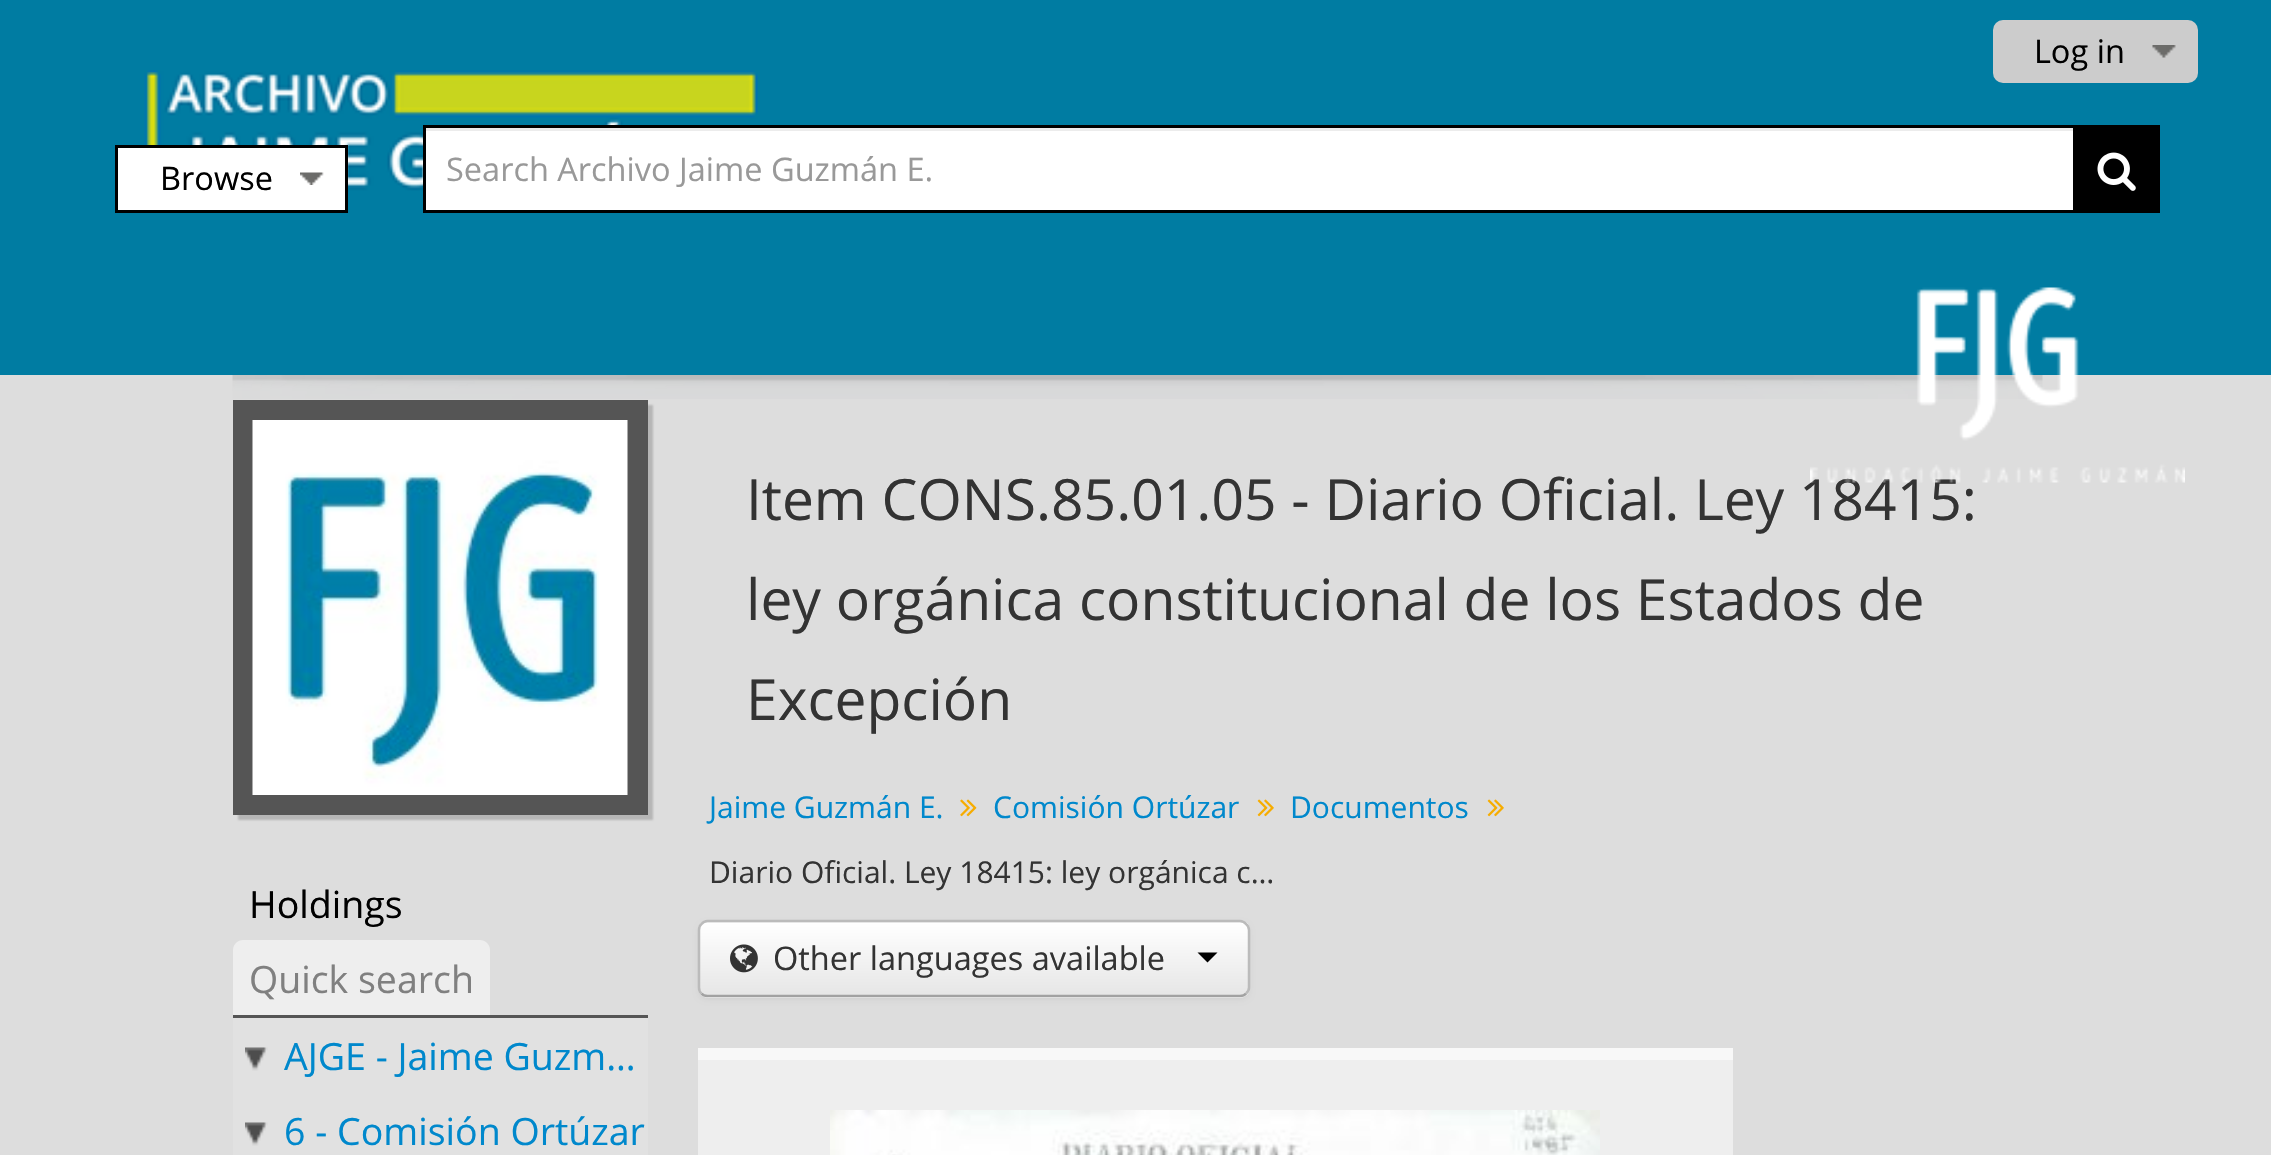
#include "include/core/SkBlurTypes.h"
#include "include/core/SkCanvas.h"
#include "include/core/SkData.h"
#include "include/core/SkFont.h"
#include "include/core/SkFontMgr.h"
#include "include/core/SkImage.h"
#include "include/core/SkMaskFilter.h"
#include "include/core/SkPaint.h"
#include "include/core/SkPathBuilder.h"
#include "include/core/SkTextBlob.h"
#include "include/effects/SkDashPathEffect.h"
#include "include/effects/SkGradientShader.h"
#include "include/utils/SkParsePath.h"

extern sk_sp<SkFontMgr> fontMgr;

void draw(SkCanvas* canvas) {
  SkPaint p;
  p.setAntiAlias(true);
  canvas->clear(SkColorSetRGB(221, 221, 221));
  p.setColor(SkColorSetRGB(0, 124, 162));
  canvas->drawRect(SkRect::MakeLTRB(0, 0, 2271, 375), p);
  canvas->drawImageRect(SkImages::DeferredFromEncodedData(SkData::MakeFromFileName("images/1.png")), SkRect::MakeLTRB(144, 70, 758, 203), SkSamplingOptions());
  p.setColor(SkColorSetRGB(204, 204, 204));
  canvas->drawRoundRect(SkRect::MakeLTRB(1993, 20, 2198, 83), 10, 10, p);
  canvas->drawImageRect(SkImages::DeferredFromEncodedData(SkData::MakeFromFileName("images/2.png")), SkRect::MakeLTRB(2152, 45, 2176, 58), SkSamplingOptions());
  p.setColor(SK_ColorWHITE);
  canvas->drawRect(SkRect::MakeLTRB(118, 148, 345, 210), p);
  canvas->drawImageRect(SkImages::DeferredFromEncodedData(SkData::MakeFromFileName("images/3.png")), SkRect::MakeLTRB(300, 172, 324, 185), SkSamplingOptions());
  p.setStyle(SkPaint::kStroke_Style);
  p.setStrokeWidth(3);
  p.setColor(SK_ColorBLACK);
  canvas->drawRect(SkRect::MakeLTRB(116.5f, 146.5f, 346.5f, 211.5f), p);
  p.setStyle(SkPaint::kFill_Style);
  p.setColor(SK_ColorWHITE);
  canvas->drawRect(SkRect::MakeLTRB(426, 131, 2073, 210), p);
  p.setColor(SkColorSetRGB(236, 236, 236));
  canvas->drawRect(SkRect::MakeLTRB(425, 128, 2073, 131), p);
  p.setStyle(SkPaint::kStroke_Style);
  p.setColor(SK_ColorBLACK);
  canvas->drawRect(SkRect::MakeLTRB(424.5f, 126.5f, 2158.5f, 211.5f), p);
  p.setStyle(SkPaint::kFill_Style);
  canvas->drawPath(SkPathBuilder().moveTo(2073, 125).lineTo(2150, 125).cubicTo(2155.5f, 125, 2160, 129.5f, 2160, 135).lineTo(2160, 203).cubicTo(2160, 208.5f, 2155.5f, 213, 2150, 213).lineTo(2073, 213).close().detach(), p);
  canvas->drawImageRect(SkImages::DeferredFromEncodedData(SkData::MakeFromFileName("images/4.png")), SkRect::MakeLTRB(2097, 152, 2136, 191), SkSamplingOptions());
  canvas->drawImageRect(SkImages::DeferredFromEncodedData(SkData::MakeFromFileName("images/6.png")), SkRect::MakeLTRB(232, 375, 2043, 399), SkSamplingOptions());
  canvas->drawImageRect(SkImages::DeferredFromEncodedData(SkData::MakeFromFileName("images/7.png")), SkRect::MakeLTRB(960, 799, 977, 817), SkSamplingOptions());
  canvas->drawImageRect(SkImages::DeferredFromEncodedData(SkData::MakeFromFileName("images/8.png")), SkRect::MakeLTRB(1257, 799, 1274, 817), SkSamplingOptions());
  canvas->drawImageRect(SkImages::DeferredFromEncodedData(SkData::MakeFromFileName("images/8.png")), SkRect::MakeLTRB(1487, 799, 1504, 817), SkSamplingOptions());
  p.setColor(SkColorSetARGB(13, 0, 0, 0));
  p.setMaskFilter(SkMaskFilter::MakeBlur(kNormal_SkBlurStyle, 2.5f));
  canvas->drawRoundRect(SkRect::MakeLTRB(698, 923, 1250, 1000), 10, 10, p);
  p.setMaskFilter(nullptr);
  p.setColor(SkColorSetRGB(245, 245, 245));
  canvas->drawRoundRect(SkRect::MakeLTRB(698, 920, 1250, 998), 10, 10, p);
  canvas->save();
  canvas->clipPath(SkPathBuilder().moveTo(708, 920).lineTo(1240, 920).cubicTo(1245.5f, 920, 1250, 924.5f, 1250, 930).lineTo(1250, 988).cubicTo(1250, 993.5f, 1245.5f, 998, 1240, 998).lineTo(708, 998).cubicTo(702.5f, 998, 698, 993.5f, 698, 988).lineTo(698, 930).cubicTo(698, 924.5f, 702.5f, 920, 708, 920).close().detach(), true);
  {
    const SkColor colors[] = {SK_ColorWHITE, SkColorSetRGB(230, 230, 230)};
    const float stops[] = {0, 1};
    const SkPoint ends[] = {{974, 923}, {974, 995}};
    p.setShader(SkGradientShader::MakeLinear(ends, colors, stops, 2, SkTileMode::kClamp));
    p.setAlpha(255);
  }
  canvas->drawRect(SkRect::MakeLTRB(698, 923, 1250, 995), p);
  canvas->restore();
  p.setStyle(SkPaint::kStroke_Style);
  p.setStrokeWidth(2.5f);
  p.setShader(nullptr);
  p.setColor(SkColorSetRGB(162, 162, 162));
  canvas->drawPath(SkPathBuilder().moveTo(1246, 993.5f).cubicTo(1244.5f, 995.5f, 1242.5f, 996, 1240, 996).lineTo(707.5f, 996).cubicTo(705, 996, 703, 995.5f, 701.5f, 993.5f).detach(), p);
  p.setColor(SkColorSetRGB(187, 187, 187));
  canvas->drawPath(SkPathBuilder().moveTo(701.5f, 993.5f).cubicTo(699.5f, 992, 699, 990, 699, 987.5f).lineTo(699, 930).cubicTo(699, 927.5f, 699.5f, 925.5f, 701.5f, 924).cubicTo(703, 922, 705, 921, 707.5f, 921).lineTo(1240, 921).cubicTo(1242.5f, 921, 1244.5f, 922, 1246, 924).cubicTo(1248, 925.5f, 1249, 927.5f, 1249, 930).lineTo(1249, 987.5f).cubicTo(1249, 990, 1248, 992, 1246, 993.5f).detach(), p);
  canvas->drawImageRect(SkImages::DeferredFromEncodedData(SkData::MakeFromFileName("images/9.png")), SkRect::MakeLTRB(730, 944, 758, 973), SkSamplingOptions());
  p.setStyle(SkPaint::kFill_Style);
  p.setColor(SK_ColorBLACK);
  canvas->drawPath(SkPathBuilder().moveTo(1197.5f, 952.5f).lineTo(1217.5f, 952.5f).lineTo(1207.5f, 962.5f).close().detach(), p);
  p.setColor(SkColorSetRGB(248, 248, 248));
  canvas->drawRect(SkRect::MakeLTRB(698, 1048, 1733, 1060), p);
  p.setColor(SkColorSetRGB(238, 238, 238));
  canvas->drawRect(SkRect::MakeLTRB(698, 1060, 1733, 1155), p);
  canvas->drawImageRect(SkImages::DeferredFromEncodedData(SkData::MakeFromFileName("images/10.png")), SkRect::MakeLTRB(830, 1110, 1600, 1155), SkSamplingOptions());
  p.setColor(SkColorSetARGB(51, 25, 25, 25));
  p.setMaskFilter(SkMaskFilter::MakeBlur(kNormal_SkBlurStyle, 1));
  canvas->drawRect(SkRect::MakeLTRB(238, 405, 653, 820), p);
  p.setMaskFilter(nullptr);
  p.setColor(SkColorSetRGB(85, 85, 85));
  canvas->drawRect(SkRect::MakeLTRB(233, 400, 648, 815), p);
  canvas->drawImageRect(SkImages::DeferredFromEncodedData(SkData::MakeFromFileName("images/11.png")), SkRect::MakeLTRB(252, 420, 628, 795), SkSamplingOptions());
  canvas->drawRect(SkRect::MakeLTRB(233, 1015, 648, 1018), p);
  p.setColor(SkColorSetRGB(238, 238, 238));
  canvas->drawPath(SkPathBuilder().moveTo(243, 940).lineTo(480, 940).cubicTo(485.5f, 940, 490, 944.5f, 490, 950).lineTo(490, 1015).lineTo(233, 1015).lineTo(233, 950).cubicTo(233, 944.5f, 237.5f, 940, 243, 940).close().detach(), p);
  p.setColor(SkColorSetRGB(225, 225, 225));
  canvas->drawRect(SkRect::MakeLTRB(233, 1018, 648, 1155), p);
  canvas->drawImageRect(SkImages::DeferredFromEncodedData(SkData::MakeFromFileName("images/12.png")), SkRect::MakeLTRB(245, 1047, 268, 1071), SkSamplingOptions());
  canvas->drawImageRect(SkImages::DeferredFromEncodedData(SkData::MakeFromFileName("images/12.png")), SkRect::MakeLTRB(245, 1122, 268, 1146), SkSamplingOptions());
  SkFont font1(fontMgr->matchFamilyStyle("Open Sans", SkFontStyle::Normal()), 32.5f);
  font1.setSubpixel(true);
  p.setColor(SK_ColorBLACK);
  canvas->drawString("Log in", 2034, 63, font1, p);
  canvas->drawString("Browse", 160, 190, font1, p);
  p.setColor(SkColorSetRGB(153, 153, 153));
  canvas->drawString("Search Archivo Jaime Guzmán E.", 446, 181, font1, p);
  SkFont font2(fontMgr->matchFamilyStyle("Open Sans", SkFontStyle::Normal()), 56.9f);
  font2.setSubpixel(true);
  p.setColor(SkColorSetRGB(51, 51, 51));
  canvas->drawString("Item CONS.85.01.05 - Diario Oficial. Ley 18415:", 746, 520, font2, p);
  canvas->drawImageRect(SkImages::DeferredFromEncodedData(SkData::MakeFromFileName("images/5.png")), SkRect::MakeLTRB(1810, 287, 2185, 483), SkSamplingOptions());
  canvas->drawString("ley orgánica constitucional de los Estados de", 746, 620, font2, p);
  canvas->drawString("Excepción", 746, 720, font2, p);
  SkFont font3(fontMgr->matchFamilyStyle("Open Sans", SkFontStyle::Normal()), 30);
  font3.setSubpixel(true);
  p.setColor(SkColorSetRGB(0, 136, 204));
  canvas->drawString("Jaime Guzmán E.", 709, 818, font3, p);
  canvas->drawString("Comisión Ortúzar", 993, 818, font3, p);
  canvas->drawString("Documentos", 1290, 818, font3, p);
  p.setColor(SkColorSetRGB(51, 51, 51));
  canvas->drawString("Diario Oficial. Ley 18415: ley orgánica c…", 709, 883, font3, p);
  canvas->drawString("Other languages available", 773, 970, font1, p);
  SkFont font4(fontMgr->matchFamilyStyle("Open Sans", SkFontStyle::Normal()), 37.5f);
  font4.setSubpixel(true);
  p.setColor(SK_ColorBLACK);
  canvas->drawString("Holdings", 249, 918, font4, p);
  p.setColor(SkColorSetRGB(128, 128, 128));
  canvas->drawString("Quick search", 249, 993, font4, p);
  p.setColor(SkColorSetRGB(0, 136, 204));
  canvas->drawString("AJGE - Jaime Guzm…", 284, 1070, font4, p);
  canvas->drawString("6 - Comisión Ortúzar", 284, 1145, font4, p);
}
